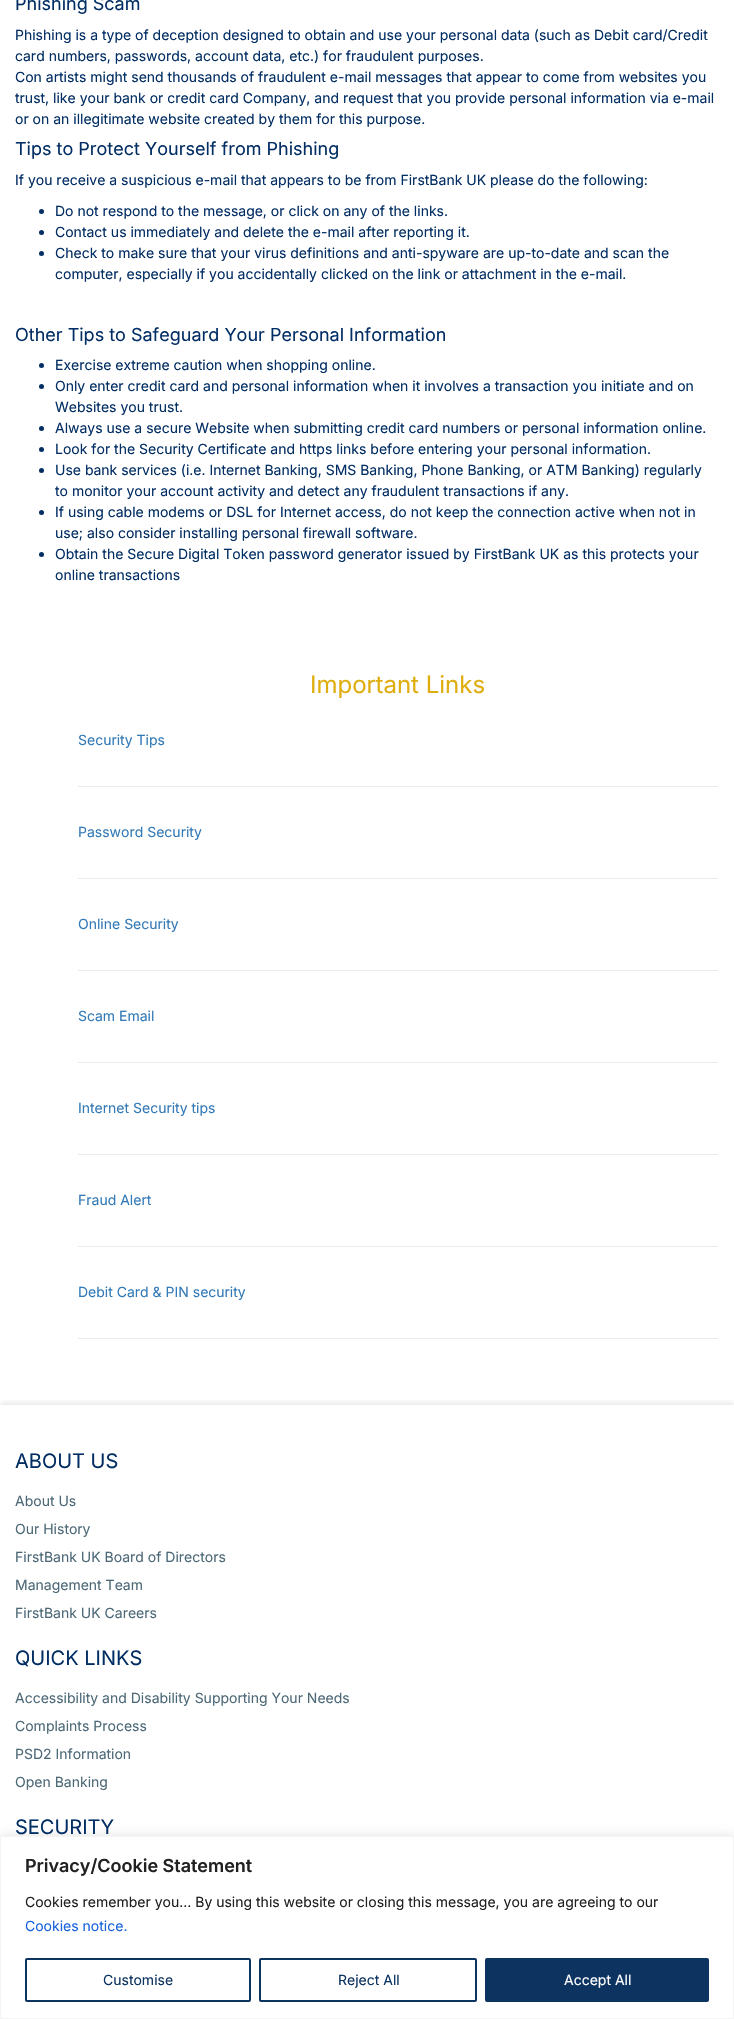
#include "include/core/SkBlurTypes.h"
#include "include/core/SkCanvas.h"
#include "include/core/SkData.h"
#include "include/core/SkFont.h"
#include "include/core/SkFontMgr.h"
#include "include/core/SkImage.h"
#include "include/core/SkMaskFilter.h"
#include "include/core/SkPaint.h"
#include "include/core/SkPathBuilder.h"
#include "include/core/SkTextBlob.h"
#include "include/effects/SkDashPathEffect.h"
#include "include/effects/SkGradientShader.h"
#include "include/utils/SkParsePath.h"

extern sk_sp<SkFontMgr> fontMgr;

void draw(SkCanvas* canvas) {
  SkPaint p;
  p.setAntiAlias(true);
  canvas->clear(SK_ColorWHITE);
  p.setColor(SkColorSetRGB(2, 46, 100));
  canvas->drawCircle(41.5f, 211.5f, 2.5f, p);
  canvas->drawCircle(41.5f, 232.5f, 2.5f, p);
  canvas->drawCircle(41.5f, 253.5f, 2.5f, p);
  canvas->drawCircle(41.5f, 365.5f, 2.5f, p);
  canvas->drawCircle(41.5f, 386.5f, 2.5f, p);
  canvas->drawCircle(41.5f, 428.5f, 2.5f, p);
  canvas->drawCircle(41.5f, 449.5f, 2.5f, p);
  canvas->drawCircle(41.5f, 470.5f, 2.5f, p);
  canvas->drawCircle(41.5f, 512.5f, 2.5f, p);
  canvas->drawCircle(41.5f, 554.5f, 2.5f, p);
  p.setColor(SkColorSetRGB(235, 235, 235));
  canvas->drawRect(SkRect::MakeLTRB(78, 786, 718, 787), p);
  canvas->drawRect(SkRect::MakeLTRB(78, 878, 718, 879), p);
  canvas->drawRect(SkRect::MakeLTRB(78, 970, 718, 971), p);
  canvas->drawRect(SkRect::MakeLTRB(78, 1062, 718, 1063), p);
  canvas->drawRect(SkRect::MakeLTRB(78, 1154, 718, 1155), p);
  canvas->drawRect(SkRect::MakeLTRB(78, 1246, 718, 1247), p);
  canvas->drawRect(SkRect::MakeLTRB(78, 1338, 718, 1339), p);
  canvas->save();
  canvas->clipRect(SkRect::MakeLTRB(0, 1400, 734, 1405));
  p.setColor(SkColorSetARGB(26, 0, 0, 0));
  p.setMaskFilter(SkMaskFilter::MakeBlur(kNormal_SkBlurStyle, 3));
  canvas->drawRect(SkRect::MakeLTRB(0, 1403, 734, 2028), p);
  p.setMaskFilter(nullptr);
  canvas->restore();
  p.setColor(SkColorSetARGB(77, 172, 171, 171));
  p.setMaskFilter(SkMaskFilter::MakeBlur(kNormal_SkBlurStyle, 5));
  canvas->drawRect(SkRect::MakeLTRB(0, 1835, 734, 2018), p);
  p.setMaskFilter(nullptr);
  p.setColor(SK_ColorWHITE);
  canvas->drawRect(SkRect::MakeLTRB(0.5f, 1836.5f, 733.5f, 2018.5f), p);
  p.setStyle(SkPaint::kStroke_Style);
  p.setStrokeWidth(1);
  p.setColor(SkColorSetRGB(244, 244, 244));
  canvas->drawRect(SkRect::MakeLTRB(0.5f, 1836.5f, 733.5f, 2018.5f), p);
  p.setStrokeWidth(2);
  p.setColor(SkColorSetRGB(13, 51, 96));
  canvas->drawRoundRect(SkRect::MakeLTRB(26, 1959, 250, 2001), 1, 1, p);
  canvas->drawRoundRect(SkRect::MakeLTRB(260, 1959, 476, 2001), 1, 1, p);
  p.setStyle(SkPaint::kFill_Style);
  canvas->drawRoundRect(SkRect::MakeLTRB(486, 1959, 708, 2001), 1, 1, p);
  p.setStyle(SkPaint::kStroke_Style);
  canvas->drawRoundRect(SkRect::MakeLTRB(486, 1959, 708, 2001), 1, 1, p);
  SkFont font1(fontMgr->matchFamilyStyle("Inter", SkFontStyle::Normal()), 18);
  font1.setSubpixel(true);
  p.setStyle(SkPaint::kFill_Style);
  p.setColor(SkColorSetRGB(2, 46, 100));
  canvas->drawString("Phishing Scam", 15, 10, font1, p);
  SkFont font2(fontMgr->matchFamilyStyle("Inter", SkFontStyle::Normal()), 14);
  font2.setSubpixel(true);
  canvas->drawString("Phishing is a type of deception designed to obtain and use your personal data (such as Debit card/Credit", 15, 40, font2, p);
  canvas->drawString("card numbers, passwords, account data, etc.) for fraudulent purposes.", 15, 61, font2, p);
  canvas->drawString("Con artists might send thousands of fraudulent e-mail messages that appear to come from websites you", 15, 82, font2, p);
  canvas->drawString("trust, like your bank or credit card Company, and request that you provide personal information via e-mail", 15, 103, font2, p);
  canvas->drawString("or on an illegitimate website created by them for this purpose.", 15, 124, font2, p);
  canvas->drawString("Tips to Protect Yourself from Phishing", 15, 155, font1, p);
  canvas->drawString("If you receive a suspicious e-mail that appears to be from FirstBank UK please do the following:", 15, 185, font2, p);
  canvas->drawString("Do not respond to the message, or click on any of the links.", 55, 216, font2, p);
  canvas->drawString("Contact us immediately and delete the e-mail after reporting it.", 55, 237, font2, p);
  canvas->drawString("Check to make sure that your virus definitions and anti-spyware are up-to-date and scan the", 55, 258, font2, p);
  canvas->drawString("computer, especially if you accidentally clicked on the link or attachment in the e-mail.", 55, 279, font2, p);
  canvas->drawString("Other Tips to Safeguard Your Personal Information", 15, 341, font1, p);
  canvas->drawString("Exercise extreme caution when shopping online.", 55, 370, font2, p);
  canvas->drawString("Only enter credit card and personal information when it involves a transaction you initiate and on", 55, 391, font2, p);
  canvas->drawString("Websites you trust.", 55, 412, font2, p);
  canvas->drawString("Always use a secure Website when submitting credit card numbers or personal information online.", 55, 433, font2, p);
  canvas->drawString("Look for the Security Certificate and https links before entering your personal information.", 55, 454, font2, p);
  canvas->drawString("Use bank services (i.e. Internet Banking, SMS Banking, Phone Banking, or ATM Banking) regularly", 55, 475, font2, p);
  canvas->drawString("to monitor your account activity and detect any fraudulent transactions if any.", 55, 496, font2, p);
  canvas->drawString("If using cable modems or DSL for Internet access, do not keep the connection active when not in", 55, 517, font2, p);
  canvas->drawString("use; also consider installing personal firewall software.", 55, 538, font2, p);
  canvas->drawString("Obtain the Secure Digital Token password generator issued by FirstBank UK as this protects your", 55, 559, font2, p);
  canvas->drawString("online transactions", 55, 580, font2, p);
  SkFont font3(fontMgr->matchFamilyStyle("Inter", SkFontStyle::Normal()), 24);
  font3.setSubpixel(true);
  p.setColor(SkColorSetRGB(224, 173, 15));
  canvas->drawString("Important Links", 310, 693, font3, p);
  p.setColor(SkColorSetRGB(51, 122, 183));
  canvas->drawString("Security Tips", 78, 745, font2, p);
  canvas->drawString("Password Security", 78, 837, font2, p);
  canvas->drawString("Online Security", 78, 929, font2, p);
  canvas->drawString("Scam Email", 78, 1021, font2, p);
  canvas->drawString("Internet Security tips", 78, 1113, font2, p);
  canvas->drawString("Fraud Alert", 78, 1205, font2, p);
  canvas->drawString("Debit Card & PIN security", 78, 1297, font2, p);
  SkFont font4(fontMgr->matchFamilyStyle("Inter", SkFontStyle::Normal()), 20);
  font4.setSubpixel(true);
  p.setColor(SkColorSetRGB(2, 46, 100));
  canvas->drawString("ABOUT US", 15, 1468, font4, p);
  p.setColor(SkColorSetRGB(77, 105, 119));
  canvas->drawString("About Us", 15, 1506, font2, p);
  canvas->drawString("Our History", 15, 1534, font2, p);
  canvas->drawString("FirstBank UK Board of Directors", 15, 1562, font2, p);
  canvas->drawString("Management Team", 15, 1590, font2, p);
  canvas->drawString("FirstBank UK Careers", 15, 1618, font2, p);
  p.setColor(SkColorSetRGB(2, 46, 100));
  canvas->drawString("QUICK LINKS", 15, 1665, font4, p);
  p.setColor(SkColorSetRGB(77, 105, 119));
  canvas->drawString("Accessibility and Disability Supporting Your Needs", 15, 1703, font2, p);
  canvas->drawString("Complaints Process", 15, 1731, font2, p);
  canvas->drawString("PSD2 Information", 15, 1759, font2, p);
  canvas->drawString("Open Banking", 15, 1787, font2, p);
  p.setColor(SkColorSetRGB(2, 46, 100));
  canvas->drawString("SECURITY", 15, 1834, font4, p);
  SkFont font5(fontMgr->matchFamilyStyle("Inter", SkFontStyle(600, SkFontStyle::kNormal_Width, SkFontStyle::kUpright_Slant)), 18);
  font5.setSubpixel(true);
  p.setColor(SkColorSetRGB(33, 33, 33));
  canvas->drawString("Privacy/Cookie Statement", 25, 1872, font5, p);
  canvas->drawString("Cookies remember you… By using this website or closing this message, you are agreeing to our", 25, 1907, font2, p);
  p.setColor(SkColorSetRGB(24, 99, 220));
  canvas->drawString("Cookies notice.", 25, 1931, font2, p);
  p.setColor(SkColorSetRGB(13, 51, 96));
  canvas->drawString("Customise", 103, 1985, font2, p);
  canvas->drawString("Reject All", 338, 1985, font2, p);
  p.setColor(SK_ColorWHITE);
  canvas->drawString("Accept All", 564, 1985, font2, p);
}
